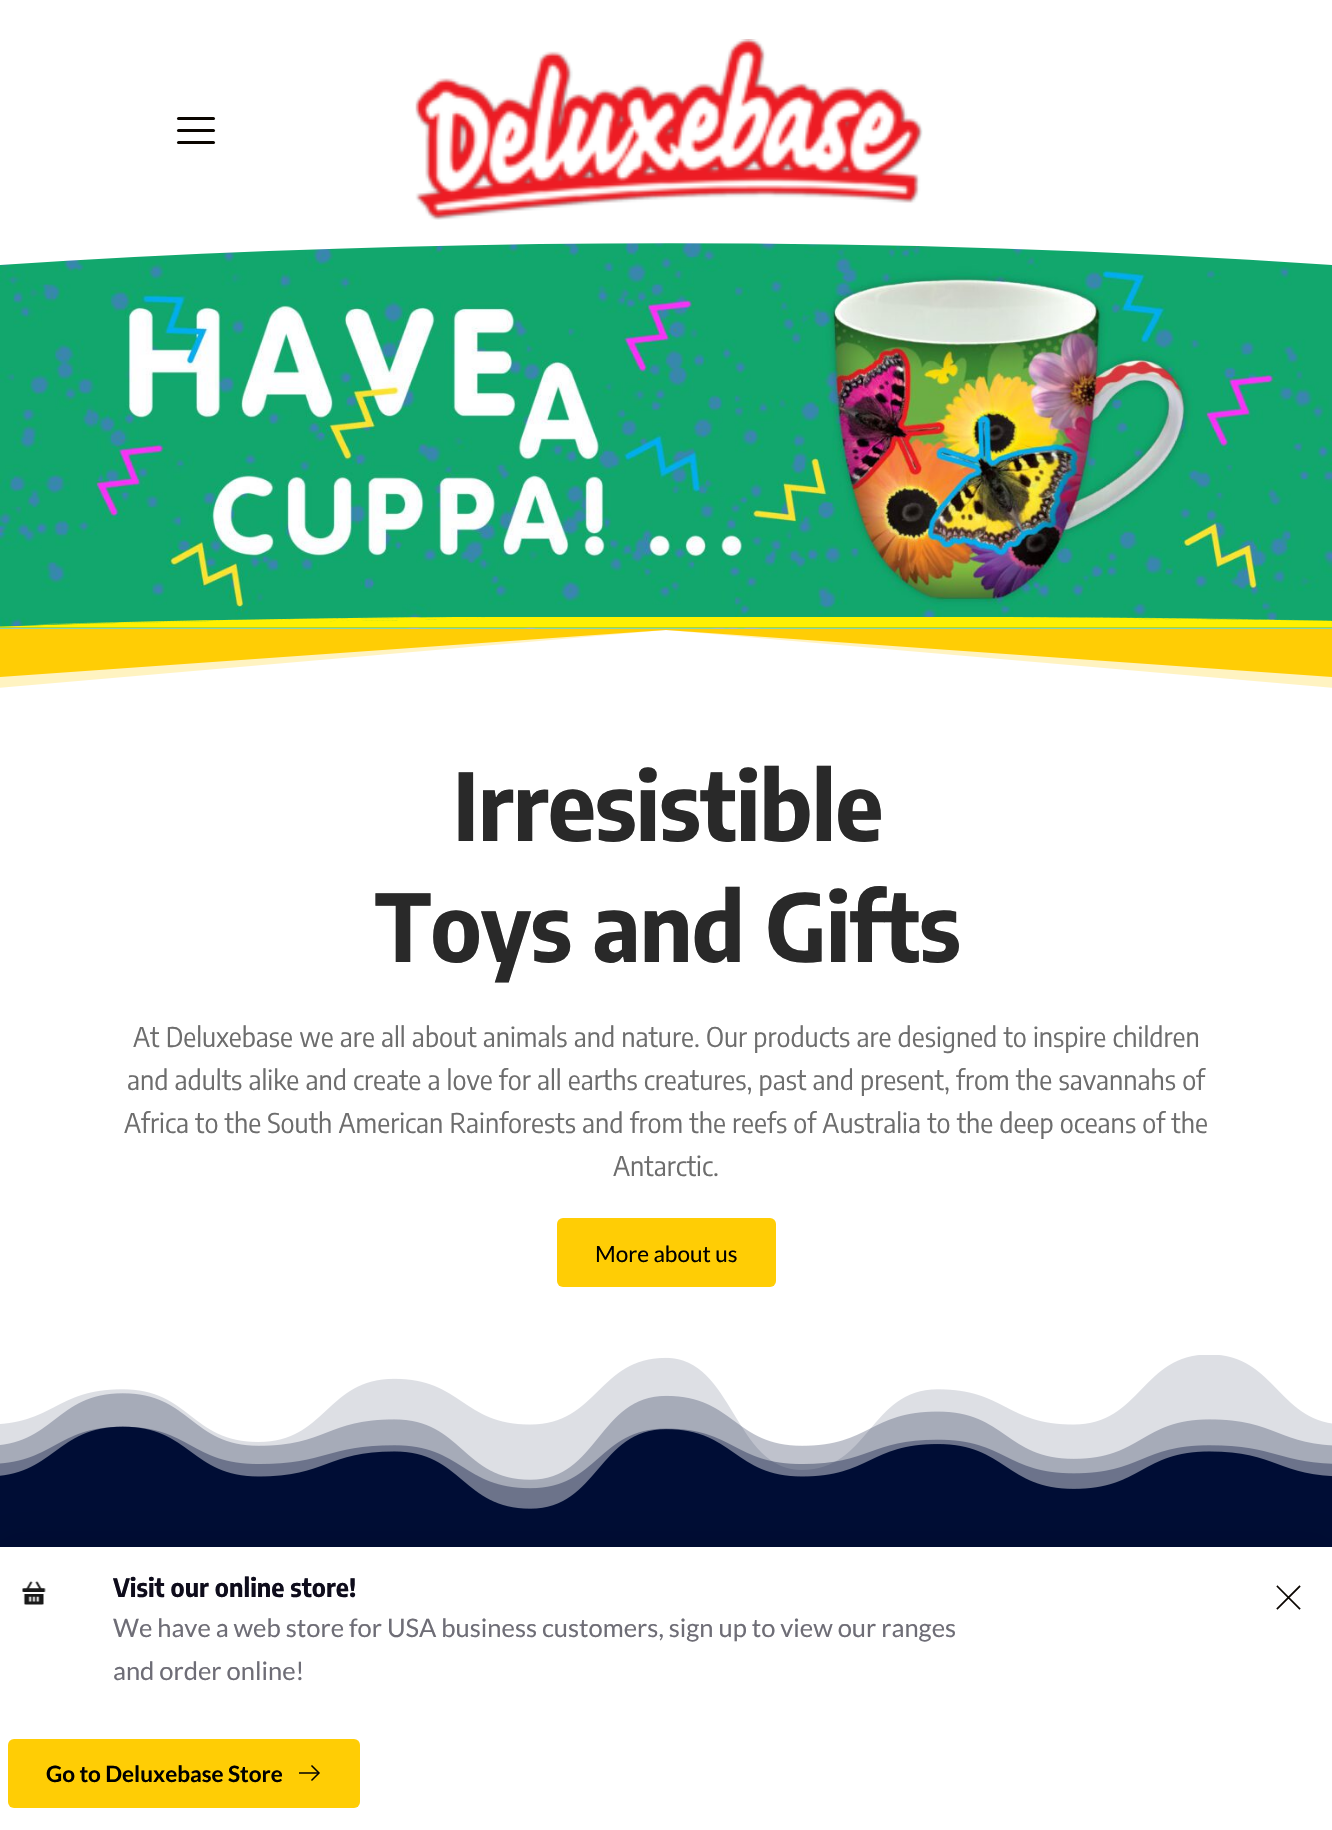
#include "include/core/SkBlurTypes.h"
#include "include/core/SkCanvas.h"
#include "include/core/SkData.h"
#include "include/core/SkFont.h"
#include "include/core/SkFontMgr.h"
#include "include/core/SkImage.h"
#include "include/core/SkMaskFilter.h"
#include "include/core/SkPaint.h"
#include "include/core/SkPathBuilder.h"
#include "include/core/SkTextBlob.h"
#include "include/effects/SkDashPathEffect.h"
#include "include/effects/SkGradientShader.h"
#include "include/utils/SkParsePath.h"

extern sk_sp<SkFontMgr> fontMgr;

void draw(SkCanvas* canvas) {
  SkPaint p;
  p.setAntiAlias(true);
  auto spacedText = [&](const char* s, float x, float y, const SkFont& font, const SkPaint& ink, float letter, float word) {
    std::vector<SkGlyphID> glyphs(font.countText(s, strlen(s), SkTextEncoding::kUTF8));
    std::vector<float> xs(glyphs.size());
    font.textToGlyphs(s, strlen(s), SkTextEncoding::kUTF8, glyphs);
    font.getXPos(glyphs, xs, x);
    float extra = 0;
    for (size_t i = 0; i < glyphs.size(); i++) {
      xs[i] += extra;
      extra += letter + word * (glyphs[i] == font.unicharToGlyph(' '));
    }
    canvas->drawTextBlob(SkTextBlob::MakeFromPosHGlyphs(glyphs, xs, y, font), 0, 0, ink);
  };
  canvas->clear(SK_ColorWHITE);
  p.setColor(SkColorSetRGB(10, 5, 0));
  canvas->drawRoundRect(SkRect::MakeLTRB(177, 117, 215, 120), 1.5f, 1.5f, p);
  canvas->drawRoundRect(SkRect::MakeLTRB(177, 129, 215, 132), 1.5f, 1.5f, p);
  canvas->drawRoundRect(SkRect::MakeLTRB(177, 141, 215, 144), 1.5f, 1.5f, p);
  canvas->drawImageRect(SkImages::DeferredFromEncodedData(SkData::MakeFromFileName("images/1.png")), SkRect::MakeLTRB(415, 39, 923, 220), SkSamplingOptions());
  canvas->drawImageRect(SkImages::DeferredFromEncodedData(SkData::MakeFromFileName("images/2.png")), SkRect::MakeLTRB(0, 243, 1332, 629), SkSamplingOptions());
  p.setColor(SK_ColorWHITE);
  canvas->drawPath(SkPathBuilder().moveTo(-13, 243).lineTo(-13, 266).cubicTo(170, 253, 354, 247, 539, 244).cubicTo(808, 241, 1077, 247, 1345, 266).lineTo(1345, 243).close().detach(), p);
  canvas->drawImageRect(SkImages::DeferredFromEncodedData(SkData::MakeFromFileName("images/3.png")), SkRect::MakeLTRB(0, 617, 1332, 628), SkSamplingOptions());
  canvas->save();
  canvas->clipRect(SkRect::MakeLTRB(0, 629, 1332, 689));
  p.setColor(SkColorSetRGB(255, 243, 193));
  canvas->drawPath(SkPathBuilder().moveTo(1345, 628).lineTo(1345, 689).lineTo(666, 630).lineTo(-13, 689).lineTo(-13, 628).close().detach(), p);
  p.setColor(SkColorSetRGB(255, 205, 5));
  canvas->drawPath(SkPathBuilder().moveTo(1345, 628).lineTo(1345, 678).lineTo(666, 630).lineTo(-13, 678).lineTo(-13, 628).close().detach(), p);
  canvas->restore();
  canvas->drawImageRect(SkImages::DeferredFromEncodedData(SkData::MakeFromFileName("images/4.png")), SkRect::MakeLTRB(0, 1355, 1332, 1535), SkSamplingOptions());
  canvas->drawRoundRect(SkRect::MakeLTRB(557, 1218, 776, 1287), 6, 6, p);
  canvas->drawImageRect(SkImages::DeferredFromEncodedData(SkData::MakeFromFileName("images/5.png")), SkRect::MakeLTRB(0, 1535, 1332, 1547), SkSamplingOptions());
  p.setColor(SkColorSetARGB(26, 0, 0, 0));
  p.setMaskFilter(SkMaskFilter::MakeBlur(kNormal_SkBlurStyle, 19));
  canvas->drawRect(SkRect::MakeLTRB(-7, 1539, 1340, 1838), p);
  p.setMaskFilter(nullptr);
  p.setColor(SK_ColorWHITE);
  canvas->drawRect(SkRect::MakeLTRB(0, 1547, 1332, 1830), p);
  canvas->drawImageRect(SkImages::DeferredFromEncodedData(SkData::MakeFromFileName("images/6.png")), SkRect::MakeLTRB(22, 1581, 46, 1605), SkSamplingOptions());
  p.setColor(SkColorSetRGB(255, 205, 5));
  canvas->drawRoundRect(SkRect::MakeLTRB(8, 1739, 360, 1808), 6, 6, p);
  canvas->drawImageRect(SkImages::DeferredFromEncodedData(SkData::MakeFromFileName("images/7.png")), SkRect::MakeLTRB(299, 1765, 320, 1781), SkSamplingOptions());
  canvas->drawImageRect(SkImages::DeferredFromEncodedData(SkData::MakeFromFileName("images/8.png")), SkRect::MakeLTRB(1276, 1585, 1301, 1610), SkSamplingOptions());
  SkFont font1(fontMgr->matchFamilyStyle("Encode Sans Semi Condensed", SkFontStyle::Bold()), 93);
  font1.setSubpixel(true);
  p.setColor(SkColorSetRGB(41, 41, 41));
  spacedText("Irresistible", 453, 841, font1, p, -0.75f, 0);
  spacedText("Toys and Gifts", 375, 962, font1, p, -0.75f, 0);
  SkFont font2(fontMgr->matchFamilyStyle("Encode Sans Semi Condensed", SkFontStyle::Normal()), 27);
  font2.setSubpixel(true);
  p.setColor(SkColorSetRGB(109, 109, 109));
  canvas->drawString("At Deluxebase we are all about animals and nature. Our products are designed to inspire children", 133, 1047, font2, p);
  canvas->drawString("and adults alike and create a love for all earths creatures, past and present, from the savannahs of", 127, 1090, font2, p);
  canvas->drawString("Africa to the South American Rainforests and from the reefs of Australia to the deep oceans of the", 124, 1133, font2, p);
  canvas->drawString("Antarctic.", 613, 1176, font2, p);
  SkFont font3(fontMgr->matchFamilyStyle("Lato", SkFontStyle::Normal()), 22.5f);
  font3.setSubpixel(true);
  p.setColor(SK_ColorBLACK);
  canvas->drawString("More about us", 595, 1262, font3, p);
  SkFont font4(fontMgr->matchFamilyStyle("Encode Sans Semi Condensed", SkFontStyle::Bold()), 25.5f);
  font4.setSubpixel(true);
  p.setColor(SkColorSetRGB(14, 12, 27));
  canvas->drawString("Visit our online store!", 113, 1597, font4, p);
  SkFont font5(fontMgr->matchFamilyStyle("Lato", SkFontStyle::Normal()), 25.5f);
  font5.setSubpixel(true);
  p.setColor(SkColorSetRGB(110, 109, 118));
  canvas->drawString("We have a web store for USA business customers, sign up to view our ranges", 113, 1637, font5, p);
  canvas->drawString("and order online!", 113, 1680, font5, p);
  SkFont font6(fontMgr->matchFamilyStyle("Lato", SkFontStyle::Bold()), 22.5f);
  font6.setSubpixel(true);
  p.setColor(SK_ColorBLACK);
  canvas->drawString("Go to Deluxebase Store", 46, 1782, font6, p);
}
